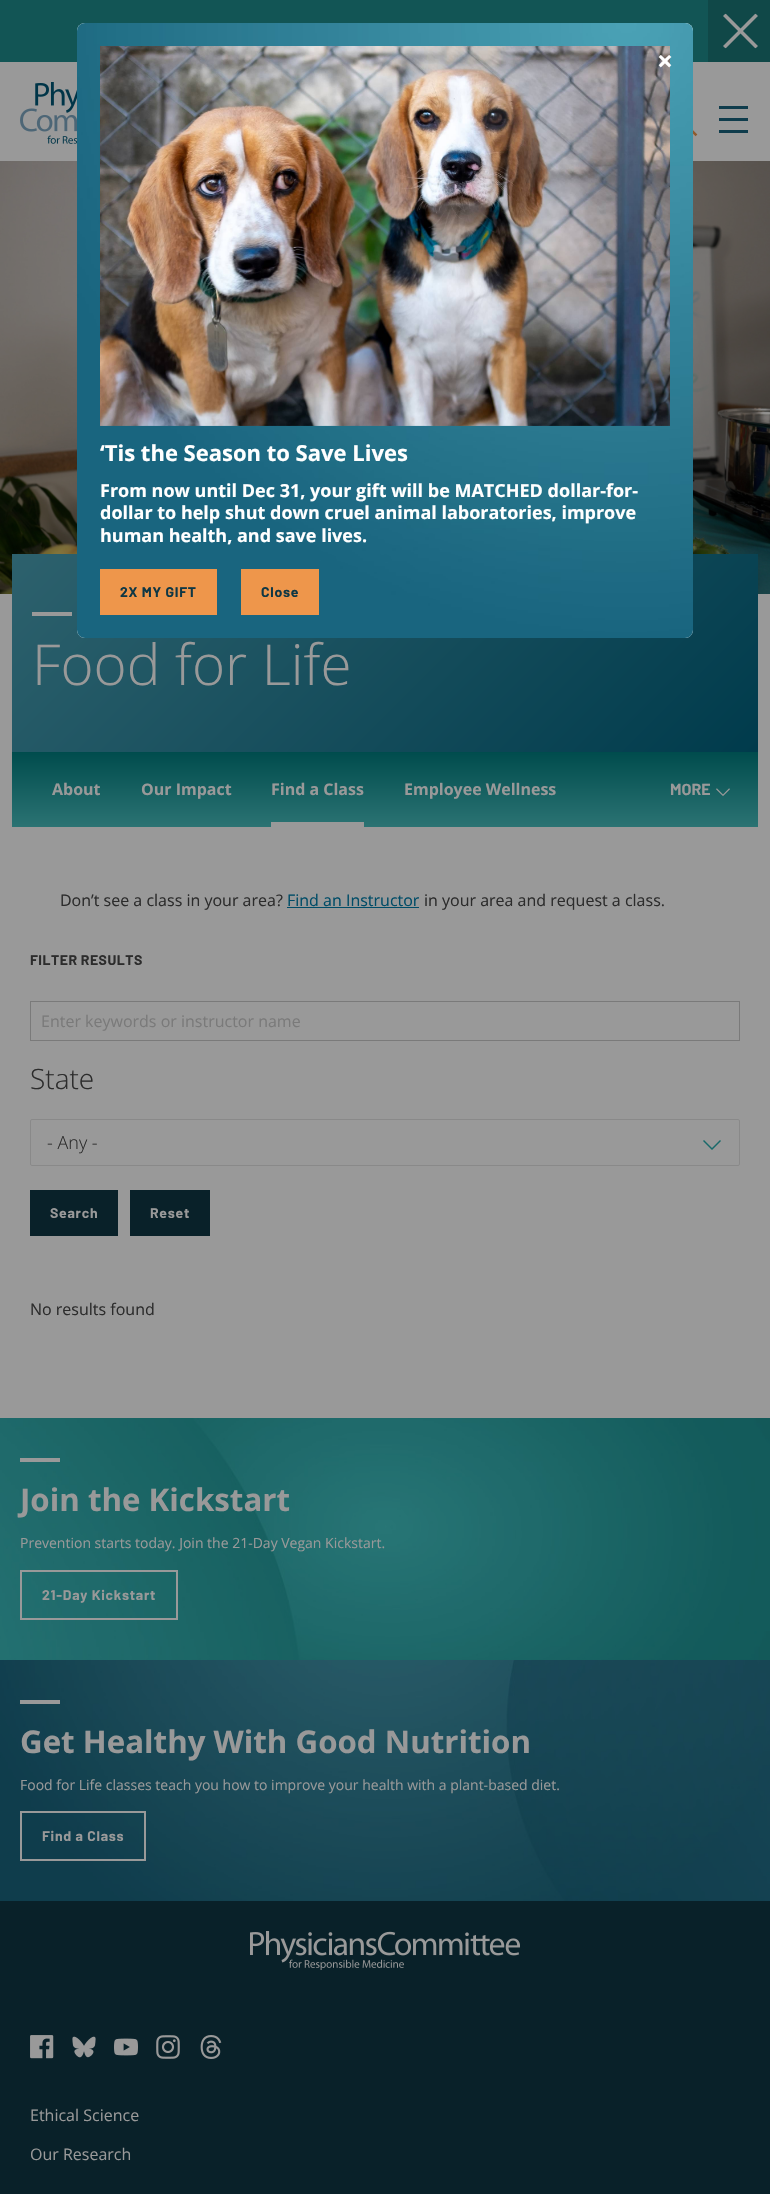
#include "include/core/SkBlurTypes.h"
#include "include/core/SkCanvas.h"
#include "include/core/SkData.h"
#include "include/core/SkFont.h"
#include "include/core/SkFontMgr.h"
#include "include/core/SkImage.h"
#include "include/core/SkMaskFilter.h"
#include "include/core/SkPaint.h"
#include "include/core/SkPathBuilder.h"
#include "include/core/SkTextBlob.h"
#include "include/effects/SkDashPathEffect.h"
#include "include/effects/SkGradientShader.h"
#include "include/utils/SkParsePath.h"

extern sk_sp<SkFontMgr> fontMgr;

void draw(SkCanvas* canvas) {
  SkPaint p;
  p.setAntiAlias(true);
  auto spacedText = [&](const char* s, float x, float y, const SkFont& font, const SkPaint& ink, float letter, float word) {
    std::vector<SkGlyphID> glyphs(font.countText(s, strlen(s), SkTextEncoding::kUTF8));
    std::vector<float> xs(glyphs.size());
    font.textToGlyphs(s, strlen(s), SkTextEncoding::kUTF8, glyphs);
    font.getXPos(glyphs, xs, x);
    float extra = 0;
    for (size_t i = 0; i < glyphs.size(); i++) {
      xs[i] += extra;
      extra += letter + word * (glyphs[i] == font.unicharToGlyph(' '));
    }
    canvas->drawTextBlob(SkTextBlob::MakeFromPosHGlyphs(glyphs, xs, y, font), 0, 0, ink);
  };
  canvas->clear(SkColorSetRGB(153, 153, 153));
  p.setColor(SkColorSetRGB(18, 85, 85));
  canvas->drawRect(SkRect::MakeLTRB(0, 0, 708, 62), p);
  canvas->drawImageRect(SkImages::DeferredFromEncodedData(SkData::MakeFromFileName("images/6.png")), SkRect::MakeLTRB(0, 161, 770, 594), SkSamplingOptions());
  {
    const SkColor colors[] = {SkColorSetRGB(45, 97, 109), SkColorSetRGB(0, 59, 76)};
    const float stops[] = {0, 1};
    const SkPoint ends[] = {{149, 417}, {621, 889}};
    p.setShader(SkGradientShader::MakeLinear(ends, colors, stops, 2, SkTileMode::kClamp));
    p.setAlpha(255);
  }
  canvas->drawRect(SkRect::MakeLTRB(12, 554, 758, 752), p);
  p.setShader(nullptr);
  p.setColor(SkColorSetRGB(254, 254, 254));
  canvas->drawRoundRect(SkRect::MakeLTRB(77, 23, 693, 638), 8, 8, p);
  canvas->drawImageRect(SkImages::DeferredFromEncodedData(SkData::MakeFromFileName("images/1.png")), SkRect::MakeLTRB(77, 23, 693, 638), SkSamplingOptions());
  canvas->drawImageRect(SkImages::DeferredFromEncodedData(SkData::MakeFromFileName("images/2.png")), SkRect::MakeLTRB(100, 46, 670, 426), SkSamplingOptions());
  p.setColor(SkColorSetRGB(238, 150, 75));
  canvas->drawRect(SkRect::MakeLTRB(100, 569, 217, 615), p);
  canvas->drawRect(SkRect::MakeLTRB(241, 569, 319, 615), p);
  p.setColor(SkColorSetRGB(16, 72, 72));
  canvas->drawRect(SkRect::MakeLTRB(708, 0, 770, 62), p);
  canvas->drawImageRect(SkImages::DeferredFromEncodedData(SkData::MakeFromFileName("images/3.png")), SkRect::MakeLTRB(723, 13, 758, 49), SkSamplingOptions());
  canvas->drawImageRect(SkImages::DeferredFromEncodedData(SkData::MakeFromFileName("images/4.png")), SkRect::MakeLTRB(20, 82, 77, 144), SkSamplingOptions());
  canvas->drawImageRect(SkImages::DeferredFromEncodedData(SkData::MakeFromFileName("images/5.png")), SkRect::MakeLTRB(693, 130, 698, 137), SkSamplingOptions());
  p.setColor(SkColorSetRGB(15, 60, 76));
  canvas->drawRect(SkRect::MakeLTRB(719, 118, 748, 121), p);
  canvas->drawRect(SkRect::MakeLTRB(719, 106, 748, 109), p);
  canvas->drawRect(SkRect::MakeLTRB(719, 130, 748, 133), p);
  p.setColor(SkColorSetRGB(153, 153, 153));
  canvas->drawRect(SkRect::MakeLTRB(32, 612, 72, 616), p);
  {
    const SkColor colors[] = {SkColorSetRGB(0, 76, 77), SkColorSetRGB(43, 115, 115)};
    const float stops[] = {0, 1};
    const SkPoint ends[] = {{385, 752}, {385, 827}};
    p.setShader(SkGradientShader::MakeLinear(ends, colors, stops, 2, SkTileMode::kClamp));
    p.setAlpha(255);
  }
  canvas->drawRect(SkRect::MakeLTRB(12, 752, 758, 827), p);
  p.setShader(nullptr);
  p.setColor(SkColorSetRGB(153, 153, 153));
  canvas->drawRect(SkRect::MakeLTRB(271, 822, 364, 827), p);
  canvas->drawImageRect(SkImages::DeferredFromEncodedData(SkData::MakeFromFileName("images/7.png")), SkRect::MakeLTRB(716, 788, 730, 796), SkSamplingOptions());
  p.setColor(SkColorSetRGB(0, 76, 103));
  canvas->drawRect(SkRect::MakeLTRB(287, 907, 419, 908), p);
  p.setStyle(SkPaint::kStroke_Style);
  p.setStrokeWidth(1);
  p.setColor(SkColorSetRGB(122, 122, 122));
  canvas->drawRect(SkRect::MakeLTRB(30.5f, 1001.5f, 739.5f, 1040.5f), p);
  p.setColor(SkColorSetRGB(137, 137, 137));
  canvas->drawRoundRect(SkRect::MakeLTRB(30.5f, 1119.5f, 739.5f, 1165.5f), 1.5f, 1.5f, p);
  p.setStyle(SkPaint::kFill_Style);
  p.setColor(SkColorSetRGB(24, 105, 106));
  canvas->drawPath(SkPathBuilder(SkPathFillType::kEvenOdd).moveTo(704, 1140).lineTo(712, 1148).lineTo(720, 1140).lineTo(721, 1141).lineTo(712, 1150).lineTo(703, 1141).close().detach(), p);
  p.setColor(SkColorSetRGB(9, 33, 41));
  canvas->drawRect(SkRect::MakeLTRB(30, 1190, 118, 1236), p);
  canvas->drawRect(SkRect::MakeLTRB(130, 1190, 210, 1236), p);
  canvas->drawImageRect(SkImages::DeferredFromEncodedData(SkData::MakeFromFileName("images/8.png")), SkRect::MakeLTRB(0, 1418, 770, 1660), SkSamplingOptions());
  p.setColor(SkColorSetRGB(153, 153, 153));
  canvas->drawRect(SkRect::MakeLTRB(20, 1458, 60, 1462), p);
  p.setStyle(SkPaint::kStroke_Style);
  p.setStrokeWidth(2);
  canvas->drawRect(SkRect::MakeLTRB(21, 1571, 177, 1619), p);
  canvas->drawImageRect(SkImages::DeferredFromEncodedData(SkData::MakeFromFileName("images/9.png")), SkRect::MakeLTRB(0, 1660, 770, 1901), SkSamplingOptions());
  p.setStyle(SkPaint::kFill_Style);
  canvas->drawRect(SkRect::MakeLTRB(20, 1700, 60, 1704), p);
  p.setStyle(SkPaint::kStroke_Style);
  canvas->drawRect(SkRect::MakeLTRB(21, 1812, 145, 1860), p);
  p.setStyle(SkPaint::kFill_Style);
  p.setColor(SkColorSetRGB(9, 33, 41));
  canvas->drawRect(SkRect::MakeLTRB(0, 1901, 770, 2194), p);
  canvas->drawImageRect(SkImages::DeferredFromEncodedData(SkData::MakeFromFileName("images/10.png")), SkRect::MakeLTRB(250, 1931, 520, 1970), SkSamplingOptions());
  canvas->drawImageRect(SkImages::DeferredFromEncodedData(SkData::MakeFromFileName("images/11.png")), SkRect::MakeLTRB(30, 2035, 54, 2059), SkSamplingOptions());
  canvas->drawImageRect(SkImages::DeferredFromEncodedData(SkData::MakeFromFileName("images/12.png")), SkRect::MakeLTRB(72, 2036, 96, 2058), SkSamplingOptions());
  canvas->drawImageRect(SkImages::DeferredFromEncodedData(SkData::MakeFromFileName("images/13.png")), SkRect::MakeLTRB(114, 2038, 138, 2056), SkSamplingOptions());
  canvas->drawImageRect(SkImages::DeferredFromEncodedData(SkData::MakeFromFileName("images/14.png")), SkRect::MakeLTRB(156, 2035, 180, 2059), SkSamplingOptions());
  canvas->drawImageRect(SkImages::DeferredFromEncodedData(SkData::MakeFromFileName("images/15.png")), SkRect::MakeLTRB(200, 2035, 222, 2059), SkSamplingOptions());
  SkFont font1(fontMgr->matchFamilyStyle("Open Sans", SkFontStyle::Bold()), 28);
  font1.setSubpixel(true);
  p.setColor(SK_ColorWHITE);
  canvas->drawString("×", 657, 71, font1, p);
  SkFont font2(fontMgr->matchFamilyStyle("Open Sans", SkFontStyle::Bold()), 22);
  font2.setSubpixel(true);
  canvas->drawString("‘Tis the Season to Save Lives", 100, 461, font2, p);
  SkFont font3(fontMgr->matchFamilyStyle("Open Sans", SkFontStyle::Bold()), 18);
  font3.setSubpixel(true);
  canvas->drawString("From now until Dec 31, your gift will be MATCHED dollar-for-", 100, 497, font3, p);
  canvas->drawString("dollar to help shut down cruel animal laboratories, improve", 100, 519, font3, p);
  canvas->drawString("human health, and save lives.", 100, 542, font3, p);
  SkFont font4(fontMgr->matchFamilyStyle("Barlow", SkFontStyle::Bold()), 14);
  font4.setSubpixel(true);
  p.setColor(SkColorSetRGB(15, 55, 68));
  spacedText("2X MY GIFT", 120, 597, font4, p, 0.75f, 0);
  spacedText("Close", 261, 597, font4, p, 0.75f, 0);
  SkFont font5(fontMgr->matchFamilyStyle("Open Sans", SkFontStyle(300, SkFontStyle::kNormal_Width, SkFontStyle::kUpright_Slant)), 56.5f);
  font5.setSubpixel(true);
  p.setColor(SkColorSetRGB(153, 153, 153));
  canvas->drawString("Food for Life", 32, 685, font5, p);
  SkFont font6(fontMgr->matchFamilyStyle("Open Sans", SkFontStyle::Bold()), 16);
  font6.setSubpixel(true);
  canvas->drawString("About", 52, 795, font6, p);
  canvas->drawString("Our Impact", 141, 795, font6, p);
  canvas->drawString("Find a Class", 271, 795, font6, p);
  canvas->drawString("Employee Wellness", 404, 795, font6, p);
  SkFont font7(fontMgr->matchFamilyStyle("Barlow", SkFontStyle::Bold()), 16);
  font7.setSubpixel(true);
  canvas->drawString("MORE", 670, 795, font7, p);
  SkFont font8(fontMgr->matchFamilyStyle("Open Sans", SkFontStyle::Normal()), 16);
  font8.setSubpixel(true);
  p.setColor(SkColorSetRGB(44, 44, 44));
  canvas->drawString("Don’t see a class in your area?", 60, 906, font8, p);
  p.setColor(SkColorSetRGB(0, 76, 103));
  canvas->drawString("Find an Instructor", 287, 906, font8, p);
  p.setColor(SkColorSetRGB(44, 44, 44));
  canvas->drawString("in your area and request a class.", 424, 906, font8, p);
  spacedText("FILTER RESULTS", 30, 965, font4, p, 0.5f, 0);
  p.setColor(SkColorSetRGB(122, 122, 122));
  canvas->drawString("Enter keywords or instructor name", 41, 1027, font8, p);
  SkFont font9(fontMgr->matchFamilyStyle("Open Sans", SkFontStyle(300, SkFontStyle::kNormal_Width, SkFontStyle::kUpright_Slant)), 28);
  font9.setSubpixel(true);
  p.setColor(SkColorSetRGB(44, 44, 44));
  canvas->drawString("State", 30, 1089, font9, p);
  SkFont font10(fontMgr->matchFamilyStyle("Open Sans", SkFontStyle(300, SkFontStyle::kNormal_Width, SkFontStyle::kUpright_Slant)), 18);
  font10.setSubpixel(true);
  canvas->drawString("- Any -", 47, 1149, font10, p);
  p.setColor(SkColorSetRGB(153, 153, 153));
  spacedText("Search", 50, 1218, font4, p, 0.75f, 0);
  spacedText("Reset", 150, 1218, font4, p, 0.75f, 0);
  p.setColor(SkColorSetRGB(44, 44, 44));
  canvas->drawString("No results found", 30, 1315, font8, p);
  SkFont font11(fontMgr->matchFamilyStyle("Open Sans", SkFontStyle::Bold()), 31.25f);
  font11.setSubpixel(true);
  p.setColor(SkColorSetRGB(153, 153, 153));
  canvas->drawString("Join the Kickstart", 20, 1511, font11, p);
  SkFont font12(fontMgr->matchFamilyStyle("Open Sans", SkFontStyle::Normal()), 14);
  font12.setSubpixel(true);
  canvas->drawString("Prevention starts today. Join the 21-Day Vegan Kickstart.", 20, 1548, font12, p);
  spacedText("21-Day Kickstart", 42, 1600, font4, p, 0.75f, 0);
  canvas->drawString("Get Healthy With Good Nutrition", 20, 1753, font11, p);
  canvas->drawString("Food for Life classes teach you how to improve your health with a plant-based diet.", 20, 1790, font12, p);
  spacedText("Find a Class", 42, 1841, font4, p, 0.75f, 0);
  canvas->drawString("Ethical Science", 30, 2121, font8, p);
  canvas->drawString("Our Research", 30, 2160, font8, p);
}
